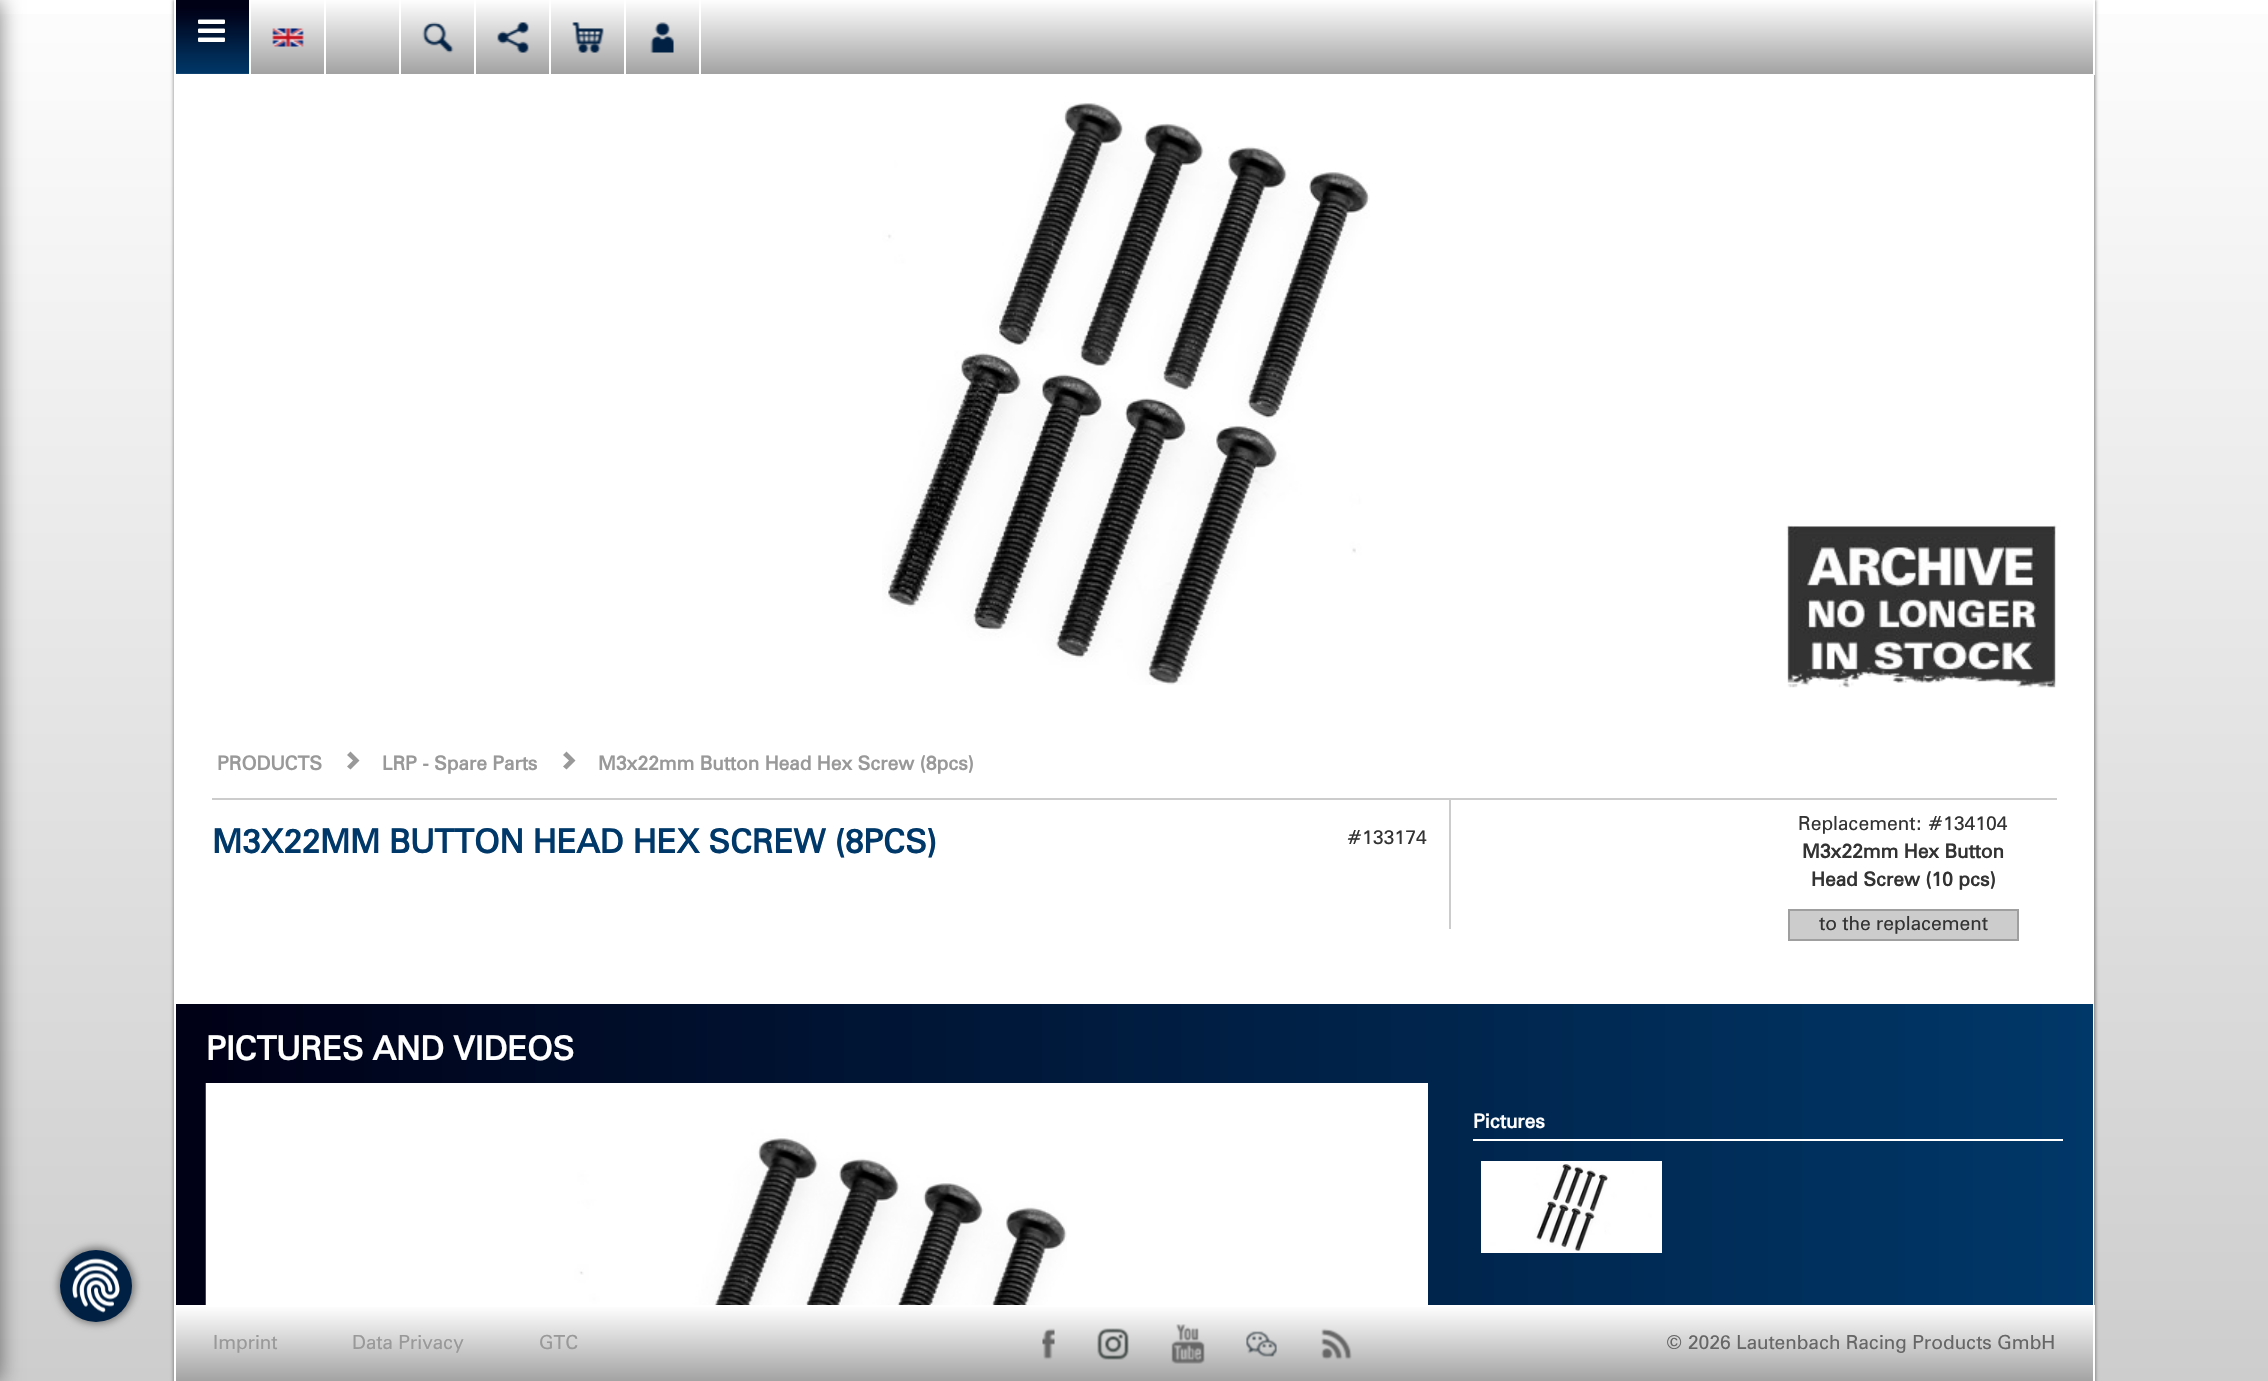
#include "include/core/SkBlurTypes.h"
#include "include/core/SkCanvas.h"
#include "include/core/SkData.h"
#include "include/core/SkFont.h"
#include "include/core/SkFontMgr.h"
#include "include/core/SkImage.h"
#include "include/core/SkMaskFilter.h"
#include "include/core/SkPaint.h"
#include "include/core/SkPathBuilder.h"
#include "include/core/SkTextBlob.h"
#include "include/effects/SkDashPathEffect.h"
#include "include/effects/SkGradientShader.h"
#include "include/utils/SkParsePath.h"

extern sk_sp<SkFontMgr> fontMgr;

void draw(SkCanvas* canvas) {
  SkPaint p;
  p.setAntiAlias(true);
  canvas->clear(SK_ColorWHITE);
  {
    const SkColor colors[] = {SkColorSetRGB(253, 253, 253), SkColorSetRGB(205, 205, 205)};
    const float stops[] = {0, 1};
    const SkPoint ends[] = {{1134, 0}, {1134, 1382}};
    p.setShader(SkGradientShader::MakeLinear(ends, colors, stops, 2, SkTileMode::kClamp));
    p.setAlpha(255);
  }
  canvas->drawRect(SkRect::MakeLTRB(0, 14, 2268, 1381), p);
  p.setShader(nullptr);
  p.setColor(SkColorSetARGB(128, 0, 0, 0));
  p.setMaskFilter(SkMaskFilter::MakeBlur(kNormal_SkBlurStyle, 11));
  canvas->drawRect(SkRect::MakeLTRB(-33, 0, 0, 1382), p);
  p.setMaskFilter(nullptr);
  p.setMaskFilter(SkMaskFilter::MakeBlur(kNormal_SkBlurStyle, 4.5f));
  canvas->drawRoundRect(SkRect::MakeLTRB(59, 1248, 134, 1323), 37.5f, 37.5f, p);
  p.setMaskFilter(nullptr);
  p.setColor(SkColorSetRGB(0, 32, 67));
  canvas->drawCircle(96, 1286, 36, p);
  canvas->drawImageRect(SkImages::DeferredFromEncodedData(SkData::MakeFromFileName("images/1.png")), SkRect::MakeLTRB(72, 1258, 120, 1313), SkSamplingOptions());
  p.setColor(SkColorSetARGB(77, 0, 0, 0));
  p.setMaskFilter(SkMaskFilter::MakeBlur(kNormal_SkBlurStyle, 1.5f));
  canvas->drawRect(SkRect::MakeLTRB(173, 0, 2093, 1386), p);
  p.setMaskFilter(nullptr);
  p.setMaskFilter(SkMaskFilter::MakeBlur(kNormal_SkBlurStyle, 1.5f));
  canvas->drawRect(SkRect::MakeLTRB(176, 0, 2096, 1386), p);
  p.setMaskFilter(nullptr);
  {
    const SkColor colors[] = {SkColorSetRGB(254, 254, 254), SkColorSetRGB(162, 162, 162)};
    const float stops[] = {0, 1};
    const SkPoint ends[] = {{1134, 0}, {1134, 74}};
    p.setShader(SkGradientShader::MakeLinear(ends, colors, stops, 2, SkTileMode::kClamp));
    p.setAlpha(255);
  }
  canvas->drawRect(SkRect::MakeLTRB(251, 0, 2093, 72), p);
  p.setShader(nullptr);
  p.setColor(SK_ColorWHITE);
  canvas->drawRect(SkRect::MakeLTRB(2093, 0, 2095, 75), p);
  canvas->drawRect(SkRect::MakeLTRB(174, 74, 2094, 76), p);
  canvas->drawRect(SkRect::MakeLTRB(174, 0, 176, 75), p);
  canvas->drawRect(SkRect::MakeLTRB(249, 0, 251, 74), p);
  {
    const SkColor colors[] = {SkColorSetRGB(0, 0, 22), SkColorSetRGB(0, 0, 22), SkColorSetRGB(0, 6, 31), SkColorSetRGB(0, 42, 84), SkColorSetRGB(0, 54, 102), SkColorSetRGB(25, 75, 118)};
    const float stops[] = {0, 0.08f, 0.23f, 0.75f, 0.98f, 1};
    const SkPoint ends[] = {{212, 0}, {212, 74}};
    p.setShader(SkGradientShader::MakeLinear(ends, colors, stops, 6, SkTileMode::kClamp));
    p.setAlpha(255);
  }
  canvas->drawRect(SkRect::MakeLTRB(176, 0, 249, 74), p);
  canvas->drawImageRect(SkImages::DeferredFromEncodedData(SkData::MakeFromFileName("images/2.png")), SkRect::MakeLTRB(198, 19, 225, 42), SkSamplingOptions());
  p.setShader(nullptr);
  p.setColor(SkColorSetRGB(163, 163, 163));
  canvas->drawRect(SkRect::MakeLTRB(251, 72, 2093, 74), p);
  p.setColor(SK_ColorWHITE);
  canvas->drawRect(SkRect::MakeLTRB(324, 0, 326, 74), p);
  canvas->drawImageRect(SkImages::DeferredFromEncodedData(SkData::MakeFromFileName("images/3.png")), SkRect::MakeLTRB(272, 28, 304, 47), SkSamplingOptions());
  canvas->drawRect(SkRect::MakeLTRB(399, 0, 401, 74), p);
  canvas->drawRect(SkRect::MakeLTRB(474, 0, 476, 74), p);
  canvas->drawImageRect(SkImages::DeferredFromEncodedData(SkData::MakeFromFileName("images/4.png")), SkRect::MakeLTRB(422, 22, 454, 53), SkSamplingOptions());
  canvas->drawRect(SkRect::MakeLTRB(549, 0, 551, 74), p);
  canvas->drawImageRect(SkImages::DeferredFromEncodedData(SkData::MakeFromFileName("images/5.png")), SkRect::MakeLTRB(497, 22, 529, 53), SkSamplingOptions());
  canvas->drawRect(SkRect::MakeLTRB(624, 0, 626, 74), p);
  canvas->drawImageRect(SkImages::DeferredFromEncodedData(SkData::MakeFromFileName("images/6.png")), SkRect::MakeLTRB(572, 22, 604, 53), SkSamplingOptions());
  canvas->drawRect(SkRect::MakeLTRB(699, 0, 701, 74), p);
  canvas->drawImageRect(SkImages::DeferredFromEncodedData(SkData::MakeFromFileName("images/7.png")), SkRect::MakeLTRB(650, 22, 674, 53), SkSamplingOptions());
  canvas->drawRect(SkRect::MakeLTRB(174, 76, 2094, 1381), p);
  canvas->drawImageRect(SkImages::DeferredFromEncodedData(SkData::MakeFromFileName("images/8.png")), SkRect::MakeLTRB(882, 102, 1370, 685), SkSamplingOptions());
  canvas->drawImageRect(SkImages::DeferredFromEncodedData(SkData::MakeFromFileName("images/9.png")), SkRect::MakeLTRB(1786, 525, 2057, 688), SkSamplingOptions());
  canvas->drawImageRect(SkImages::DeferredFromEncodedData(SkData::MakeFromFileName("images/10.png")), SkRect::MakeLTRB(1786, 666, 2057, 705), SkSamplingOptions());
  p.setColor(SkColorSetRGB(204, 204, 204));
  canvas->drawRect(SkRect::MakeLTRB(212, 798, 2057, 800), p);
  p.setColor(SkColorSetRGB(153, 153, 153));
  canvas->drawPath(SkPathBuilder().moveTo(359.5f, 760.5f).lineTo(350.5f, 769.5f).lineTo(347, 766.5f).lineTo(353, 760.5f).lineTo(347, 755).lineTo(350.5f, 751.5f).close().detach(), p);
  canvas->drawPath(SkPathBuilder().moveTo(575.5f, 760.5f).lineTo(566.5f, 769.5f).lineTo(563, 766.5f).lineTo(569, 760.5f).lineTo(563, 755).lineTo(566.5f, 751.5f).close().detach(), p);
  p.setColor(SkColorSetRGB(204, 204, 204));
  canvas->drawRect(SkRect::MakeLTRB(1449, 800, 1451, 929), p);
  canvas->drawRect(SkRect::MakeLTRB(1789, 910, 2018, 940), p);
  p.setStyle(SkPaint::kStroke_Style);
  p.setStrokeWidth(2);
  p.setColor(SkColorSetRGB(159, 159, 159));
  canvas->drawRect(SkRect::MakeLTRB(1789, 910, 2018, 940), p);
  p.setStyle(SkPaint::kFill_Style);
  {
    const SkColor colors[] = {SkColorSetRGB(0, 0, 22), SkColorSetRGB(0, 56, 105)};
    const float stops[] = {0, 1};
    const SkPoint ends[] = {{176, 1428}, {2093, 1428}};
    p.setShader(SkGradientShader::MakeLinear(ends, colors, stops, 2, SkTileMode::kClamp));
    p.setAlpha(255);
  }
  canvas->drawRect(SkRect::MakeLTRB(176, 1004, 2093, 1305), p);
  p.setShader(nullptr);
  p.setColor(SK_ColorWHITE);
  canvas->drawRect(SkRect::MakeLTRB(1067, 1083, 1428, 1305), p);
  canvas->drawImageRect(SkImages::DeferredFromEncodedData(SkData::MakeFromFileName("images/11.png")), SkRect::MakeLTRB(205, 1083, 1067, 1305), SkSamplingOptions());
  canvas->drawRect(SkRect::MakeLTRB(1473, 1139, 2063, 1141), p);
  canvas->drawImageRect(SkImages::DeferredFromEncodedData(SkData::MakeFromFileName("images/12.png")), SkRect::MakeLTRB(1483, 1163, 1660, 1251), SkSamplingOptions());
  p.setStyle(SkPaint::kStroke_Style);
  canvas->drawRect(SkRect::MakeLTRB(1482, 1162, 1661, 1252), p);
  p.setStyle(SkPaint::kFill_Style);
  canvas->drawRect(SkRect::MakeLTRB(2094, 1305, 2095, 1381), p);
  {
    const SkColor colors[] = {SkColorSetRGB(254, 254, 254), SkColorSetRGB(162, 162, 162)};
    const float stops[] = {0, 1};
    const SkPoint ends[] = {{1134, 1306}, {1134, 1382}};
    p.setShader(SkGradientShader::MakeLinear(ends, colors, stops, 2, SkTileMode::kClamp));
    p.setAlpha(255);
  }
  canvas->drawRect(SkRect::MakeLTRB(176, 1307, 2093, 1381), p);
  canvas->drawImageRect(SkImages::DeferredFromEncodedData(SkData::MakeFromFileName("images/13.png")), SkRect::MakeLTRB(1042, 1328, 1055, 1360), SkSamplingOptions());
  canvas->drawImageRect(SkImages::DeferredFromEncodedData(SkData::MakeFromFileName("images/14.png")), SkRect::MakeLTRB(1097, 1328, 1129, 1360), SkSamplingOptions());
  canvas->drawImageRect(SkImages::DeferredFromEncodedData(SkData::MakeFromFileName("images/15.png")), SkRect::MakeLTRB(1171, 1324, 1205, 1364), SkSamplingOptions());
  canvas->drawImageRect(SkImages::DeferredFromEncodedData(SkData::MakeFromFileName("images/16.png")), SkRect::MakeLTRB(1246, 1331, 1277, 1357), SkSamplingOptions());
  canvas->drawImageRect(SkImages::DeferredFromEncodedData(SkData::MakeFromFileName("images/17.png")), SkRect::MakeLTRB(1321, 1328, 1352, 1360), SkSamplingOptions());
  SkFont font1(fontMgr->matchFamilyStyle("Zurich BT", SkFontStyle::Bold()), 19.5f);
  font1.setSubpixel(true);
  p.setShader(nullptr);
  p.setColor(SkColorSetRGB(153, 153, 153));
  canvas->drawString("PRODUCTS", 217, 770, font1, p);
  canvas->drawString("LRP - Spare Parts", 382, 770, font1, p);
  canvas->drawString("M3x22mm Button Head Hex Screw (8pcs)", 598, 770, font1, p);
  SkFont font2(fontMgr->matchFamilyStyle("Zurich BT", SkFontStyle::Bold()), 33);
  font2.setSubpixel(true);
  p.setColor(SkColorSetRGB(0, 56, 105));
  canvas->drawString("M3X22MM BUTTON HEAD HEX SCREW (8PCS)", 212, 853, font2, p);
  SkFont font3(fontMgr->matchFamilyStyle("Zurich BT", SkFontStyle::Normal()), 19.5f);
  font3.setSubpixel(true);
  p.setColor(SkColorSetRGB(51, 51, 51));
  canvas->drawString("#133174", 1347, 844, font3, p);
  canvas->drawString("Replacement: #134104", 1798, 830, font3, p);
  canvas->drawString("M3x22mm Hex Button", 1802, 858, font1, p);
  canvas->drawString("Head Screw (10 pcs)", 1811, 886, font1, p);
  canvas->drawString("to the replacement", 1819, 930, font3, p);
  p.setColor(SK_ColorWHITE);
  canvas->drawString("PICTURES AND VIDEOS", 206, 1060, font2, p);
  canvas->drawString("Pictures", 1473, 1128, font1, p);
  p.setColor(SkColorSetRGB(153, 153, 153));
  canvas->drawString("Imprint", 213, 1349, font3, p);
  canvas->drawString("Data Privacy", 352, 1349, font3, p);
  canvas->drawString("GTC", 539, 1349, font3, p);
  p.setColor(SkColorSetRGB(102, 102, 102));
  canvas->drawString("© 2026 Lautenbach Racing Products GmbH", 1666, 1349, font3, p);
}
